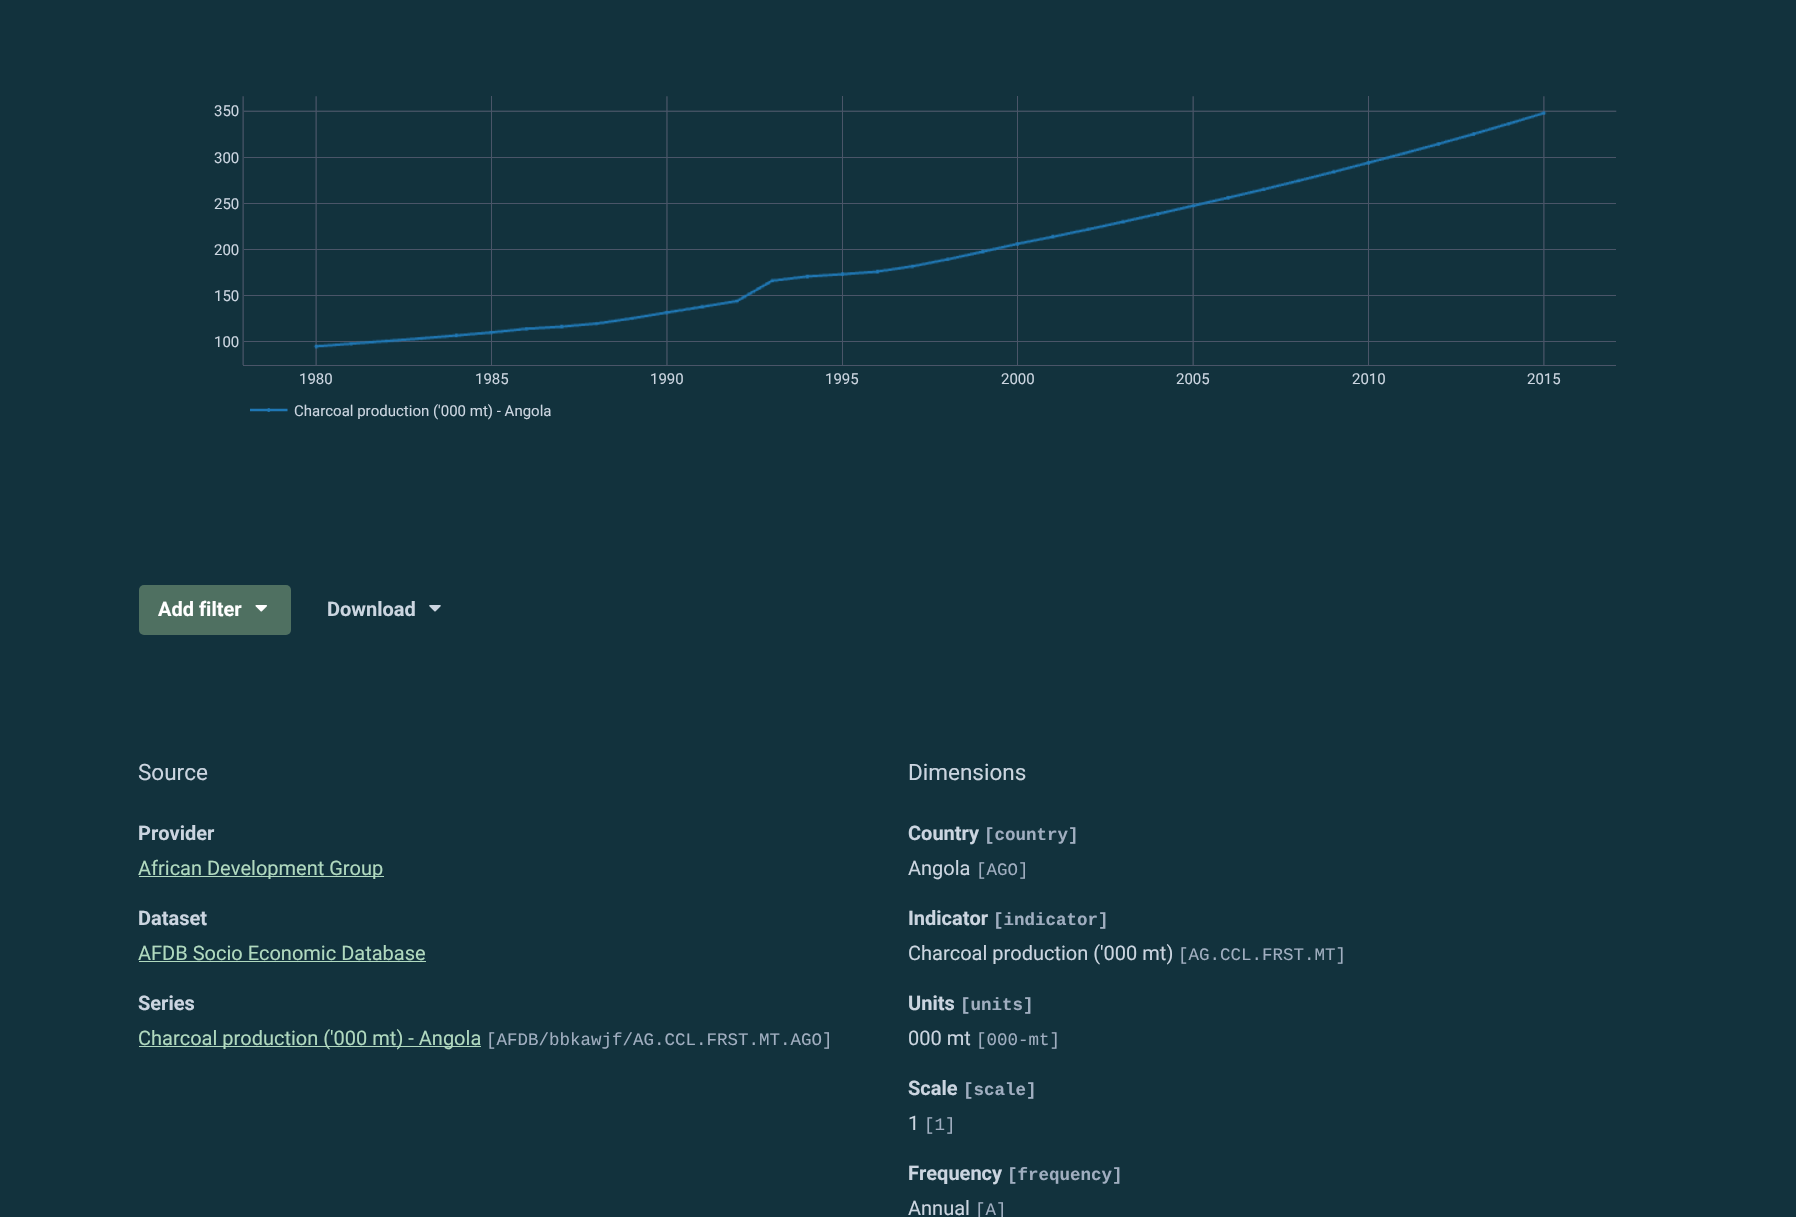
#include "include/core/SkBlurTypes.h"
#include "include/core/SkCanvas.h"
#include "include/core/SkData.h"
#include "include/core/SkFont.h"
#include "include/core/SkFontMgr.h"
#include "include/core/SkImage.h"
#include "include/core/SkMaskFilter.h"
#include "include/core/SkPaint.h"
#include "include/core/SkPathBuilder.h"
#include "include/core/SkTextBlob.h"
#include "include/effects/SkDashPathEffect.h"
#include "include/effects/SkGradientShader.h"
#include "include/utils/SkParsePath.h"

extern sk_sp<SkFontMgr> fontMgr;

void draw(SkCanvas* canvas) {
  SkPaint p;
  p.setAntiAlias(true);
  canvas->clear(SkColorSetRGB(18, 50, 61));
  canvas->drawImageRect(SkImages::DeferredFromEncodedData(SkData::MakeFromFileName("images/1.png")), SkRect::MakeLTRB(242, 96, 1617, 366), SkSamplingOptions());
  canvas->drawImageRect(SkImages::DeferredFromEncodedData(SkData::MakeFromFileName("images/2.png")), SkRect::MakeLTRB(313, 110, 1547, 349), SkSamplingOptions());
  p.setStyle(SkPaint::kStroke_Style);
  p.setStrokeWidth(2.5f);
  p.setColor(SkColorSetRGB(31, 119, 180));
  canvas->drawPath(SkPathBuilder().moveTo(250, 410).lineTo(287.5f, 410).detach(), p);
  p.setStyle(SkPaint::kFill_Style);
  canvas->drawPath(SkPathBuilder().moveTo(270.5f, 410).cubicTo(270.5f, 412.5f, 267, 412.5f, 267, 410).cubicTo(267, 407.5f, 270.5f, 407.5f, 270.5f, 410).close().detach(), p);
  p.setColor(SkColorSetRGB(79, 112, 97));
  canvas->drawRoundRect(SkRect::MakeLTRB(139, 585, 291, 635), 5, 5, p);
  canvas->drawImageRect(SkImages::DeferredFromEncodedData(SkData::MakeFromFileName("images/3.png")), SkRect::MakeLTRB(255, 605, 267, 612), SkSamplingOptions());
  canvas->drawImageRect(SkImages::DeferredFromEncodedData(SkData::MakeFromFileName("images/4.png")), SkRect::MakeLTRB(429, 605, 441, 612), SkSamplingOptions());
  p.setColor(SkColorSetRGB(176, 217, 191));
  canvas->drawRect(SkRect::MakeLTRB(139, 876, 384, 877), p);
  canvas->drawRect(SkRect::MakeLTRB(139, 961, 426, 962), p);
  canvas->drawRect(SkRect::MakeLTRB(139, 1046, 481, 1047), p);
  SkFont font1(fontMgr->matchFamilyStyle("Roboto", SkFontStyle::Normal()), 15);
  font1.setSubpixel(true);
  p.setColor(SkColorSetRGB(203, 213, 224));
  canvas->drawString("350", 214, 116, font1, p);
  canvas->drawString("300", 214, 163, font1, p);
  canvas->drawString("250", 214, 209, font1, p);
  canvas->drawString("200", 214, 255, font1, p);
  canvas->drawString("150", 214, 301, font1, p);
  canvas->drawString("100", 214, 347, font1, p);
  canvas->drawString("1980", 299, 384, font1, p);
  canvas->drawString("1985", 475, 384, font1, p);
  canvas->drawString("1990", 650, 384, font1, p);
  canvas->drawString("1995", 825, 384, font1, p);
  canvas->drawString("2000", 1001, 384, font1, p);
  canvas->drawString("2005", 1176, 384, font1, p);
  canvas->drawString("2010", 1352, 384, font1, p);
  canvas->drawString("2015", 1527, 384, font1, p);
  canvas->drawString("Charcoal production ('000 mt) - Angola", 294, 416, font1, p);
  SkFont font2(fontMgr->matchFamilyStyle("Roboto", SkFontStyle::Bold()), 20);
  font2.setSubpixel(true);
  p.setColor(SK_ColorWHITE);
  canvas->drawString("Add filter", 158, 616, font2, p);
  p.setColor(SkColorSetRGB(203, 213, 224));
  canvas->drawString("Download", 327, 616, font2, p);
  SkFont font3(fontMgr->matchFamilyStyle("Roboto", SkFontStyle::Normal()), 22.5f);
  font3.setSubpixel(true);
  canvas->drawString("Source", 138, 780, font3, p);
  canvas->drawString("Provider", 138, 840, font2, p);
  SkFont font4(fontMgr->matchFamilyStyle("Roboto", SkFontStyle::Normal()), 20);
  font4.setSubpixel(true);
  p.setColor(SkColorSetRGB(176, 217, 191));
  canvas->drawString("African Development Group", 138, 875, font4, p);
  p.setColor(SkColorSetRGB(203, 213, 224));
  canvas->drawString("Dataset", 138, 925, font2, p);
  p.setColor(SkColorSetRGB(176, 217, 191));
  canvas->drawString("AFDB Socio Economic Database", 138, 960, font4, p);
  p.setColor(SkColorSetRGB(203, 213, 224));
  canvas->drawString("Series", 138, 1010, font2, p);
  p.setColor(SkColorSetRGB(176, 217, 191));
  canvas->drawString("Charcoal production ('000 mt) - Angola", 138, 1045, font4, p);
  SkFont font5(fontMgr->matchFamilyStyle("Liberation Mono", SkFontStyle::Normal()), 17.5f);
  font5.setSubpixel(true);
  p.setColor(SkColorSetRGB(160, 174, 192));
  canvas->drawString("[AFDB/bbkawjf/AG.CCL.FRST.MT.AGO]", 486, 1045, font5, p);
  p.setColor(SkColorSetRGB(203, 213, 224));
  canvas->drawString("Dimensions", 908, 780, font3, p);
  canvas->drawString("Country", 908, 840, font2, p);
  SkFont font6(fontMgr->matchFamilyStyle("Liberation Mono", SkFontStyle::Bold()), 17.5f);
  font6.setSubpixel(true);
  p.setColor(SkColorSetRGB(160, 174, 192));
  canvas->drawString("[country]", 984, 840, font6, p);
  p.setColor(SkColorSetRGB(203, 213, 224));
  canvas->drawString("Angola", 908, 875, font4, p);
  p.setColor(SkColorSetRGB(160, 174, 192));
  canvas->drawString("[AGO]", 976, 875, font5, p);
  p.setColor(SkColorSetRGB(203, 213, 224));
  canvas->drawString("Indicator", 908, 925, font2, p);
  p.setColor(SkColorSetRGB(160, 174, 192));
  canvas->drawString("[indicator]", 993, 925, font6, p);
  p.setColor(SkColorSetRGB(203, 213, 224));
  canvas->drawString("Charcoal production ('000 mt)", 908, 960, font4, p);
  p.setColor(SkColorSetRGB(160, 174, 192));
  canvas->drawString("[AG.CCL.FRST.MT]", 1178, 960, font5, p);
  p.setColor(SkColorSetRGB(203, 213, 224));
  canvas->drawString("Units", 908, 1010, font2, p);
  p.setColor(SkColorSetRGB(160, 174, 192));
  canvas->drawString("[units]", 960, 1010, font6, p);
  p.setColor(SkColorSetRGB(203, 213, 224));
  canvas->drawString("000 mt", 908, 1045, font4, p);
  p.setColor(SkColorSetRGB(160, 174, 192));
  canvas->drawString("[000-mt]", 976, 1045, font5, p);
  p.setColor(SkColorSetRGB(203, 213, 224));
  canvas->drawString("Scale", 908, 1095, font2, p);
  p.setColor(SkColorSetRGB(160, 174, 192));
  canvas->drawString("[scale]", 963, 1095, font6, p);
  p.setColor(SkColorSetRGB(203, 213, 224));
  canvas->drawString("1", 908, 1130, font4, p);
  p.setColor(SkColorSetRGB(160, 174, 192));
  canvas->drawString("[1]", 924, 1130, font5, p);
  p.setColor(SkColorSetRGB(203, 213, 224));
  canvas->drawString("Frequency", 908, 1180, font2, p);
  p.setColor(SkColorSetRGB(160, 174, 192));
  canvas->drawString("[frequency]", 1007, 1180, font6, p);
  p.setColor(SkColorSetRGB(203, 213, 224));
  canvas->drawString("Annual", 908, 1215, font4, p);
  p.setColor(SkColorSetRGB(160, 174, 192));
  canvas->drawString("[A]", 975, 1215, font5, p);
}
